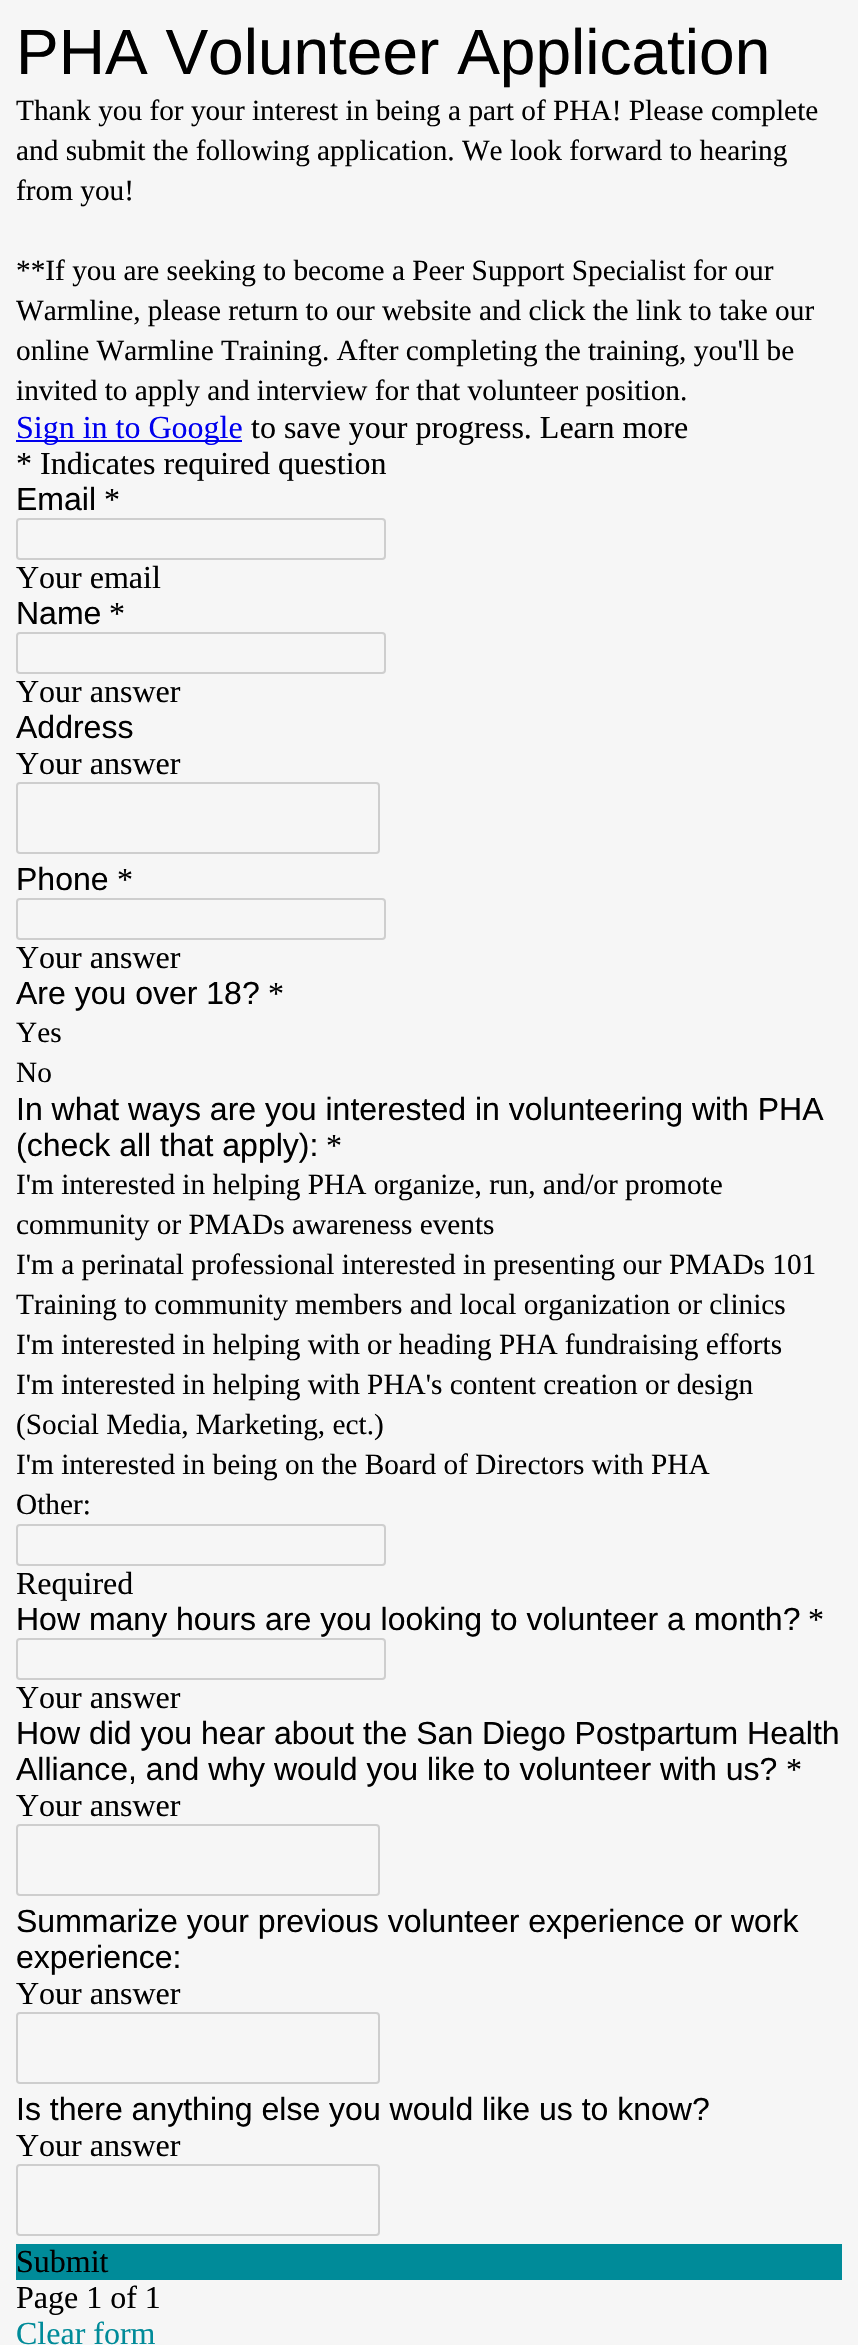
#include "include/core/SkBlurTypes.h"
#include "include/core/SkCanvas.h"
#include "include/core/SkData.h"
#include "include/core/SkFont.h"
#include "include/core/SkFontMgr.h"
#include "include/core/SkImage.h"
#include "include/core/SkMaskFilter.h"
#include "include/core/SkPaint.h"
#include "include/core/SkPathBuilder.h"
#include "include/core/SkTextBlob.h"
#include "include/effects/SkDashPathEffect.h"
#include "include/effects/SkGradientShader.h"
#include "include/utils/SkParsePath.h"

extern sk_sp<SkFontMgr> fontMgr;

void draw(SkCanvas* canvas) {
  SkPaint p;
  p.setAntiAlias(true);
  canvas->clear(SkColorSetRGB(246, 246, 246));
  p.setColor(SkColorSetRGB(0, 0, 238));
  canvas->drawRect(SkRect::MakeLTRB(16, 440, 242, 442), p);
  p.setStyle(SkPaint::kStroke_Style);
  p.setStrokeWidth(2);
  p.setColor(SkColorSetRGB(206, 206, 206));
  canvas->drawRoundRect(SkRect::MakeLTRB(17, 519, 385, 559), 3, 3, p);
  canvas->drawRoundRect(SkRect::MakeLTRB(17, 633, 385, 673), 3, 3, p);
  canvas->drawRoundRect(SkRect::MakeLTRB(17, 783, 379, 853), 3, 3, p);
  canvas->drawRoundRect(SkRect::MakeLTRB(17, 899, 385, 939), 3, 3, p);
  canvas->drawRoundRect(SkRect::MakeLTRB(17, 1525, 385, 1565), 3, 3, p);
  canvas->drawRoundRect(SkRect::MakeLTRB(17, 1639, 385, 1679), 3, 3, p);
  canvas->drawRoundRect(SkRect::MakeLTRB(17, 1825, 379, 1895), 3, 3, p);
  canvas->drawRoundRect(SkRect::MakeLTRB(17, 2013, 379, 2083), 3, 3, p);
  canvas->drawRoundRect(SkRect::MakeLTRB(17, 2165, 379, 2235), 3, 3, p);
  p.setStyle(SkPaint::kFill_Style);
  p.setColor(SkColorSetRGB(0, 139, 153));
  canvas->drawRect(SkRect::MakeLTRB(16, 2244, 842, 2280), p);
  SkFont font1(fontMgr->matchFamilyStyle("Liberation Sans", SkFontStyle::Normal()), 64);
  font1.setSubpixel(true);
  p.setColor(SK_ColorBLACK);
  canvas->drawString("PHA Volunteer Application", 16, 74, font1, p);
  SkFont font2(fontMgr->matchFamilyStyle("Liberation Serif", SkFontStyle::Normal()), 29.3f);
  font2.setSubpixel(true);
  canvas->drawString("Thank you for your interest in being a part of PHA! Please complete", 16, 120, font2, p);
  canvas->drawString("and submit the following application. We look forward to hearing", 16, 160, font2, p);
  canvas->drawString("from you!", 16, 200, font2, p);
  canvas->drawString("**If you are seeking to become a Peer Support Specialist for our", 16, 280, font2, p);
  canvas->drawString("Warmline, please return to our website and click the link to take our", 16, 320, font2, p);
  canvas->drawString("online Warmline Training. After completing the training, you'll be", 16, 360, font2, p);
  canvas->drawString("invited to apply and interview for that volunteer position.", 16, 400, font2, p);
  SkFont font3(fontMgr->matchFamilyStyle("Liberation Serif", SkFontStyle::Normal()), 32);
  font3.setSubpixel(true);
  p.setColor(SkColorSetRGB(0, 0, 238));
  canvas->drawString("Sign in to Google", 16, 438, font3, p);
  p.setColor(SK_ColorBLACK);
  canvas->drawString("to save your progress. Learn more", 251, 438, font3, p);
  canvas->drawString("* Indicates required question", 16, 474, font3, p);
  SkFont font4(fontMgr->matchFamilyStyle("Liberation Sans", SkFontStyle::Normal()), 32);
  font4.setSubpixel(true);
  canvas->drawString("Email", 16, 510, font4, p);
  canvas->drawString("*", 104, 510, font3, p);
  canvas->drawString("Your email", 16, 588, font3, p);
  canvas->drawString("Name", 16, 624, font4, p);
  canvas->drawString("*", 109, 624, font3, p);
  canvas->drawString("Your answer", 16, 702, font3, p);
  canvas->drawString("Address", 16, 738, font4, p);
  canvas->drawString("Your answer", 16, 774, font3, p);
  canvas->drawString("Phone", 16, 890, font4, p);
  canvas->drawString("*", 117, 890, font3, p);
  canvas->drawString("Your answer", 16, 968, font3, p);
  canvas->drawString("Are you over 18?", 16, 1004, font4, p);
  canvas->drawString("*", 268, 1004, font3, p);
  canvas->drawString("Yes", 16, 1042, font2, p);
  canvas->drawString("No", 16, 1082, font2, p);
  canvas->drawString("In what ways are you interested in volunteering with PHA", 16, 1120, font4, p);
  canvas->drawString("(check all that apply):", 16, 1156, font4, p);
  canvas->drawString("*", 326, 1156, font3, p);
  canvas->drawString("I'm interested in helping PHA organize, run, and/or promote", 16, 1194, font2, p);
  canvas->drawString("community or PMADs awareness events", 16, 1234, font2, p);
  canvas->drawString("I'm a perinatal professional interested in presenting our PMADs 101", 16, 1274, font2, p);
  canvas->drawString("Training to community members and local organization or clinics", 16, 1314, font2, p);
  canvas->drawString("I'm interested in helping with or heading PHA fundraising efforts", 16, 1354, font2, p);
  canvas->drawString("I'm interested in helping with PHA's content creation or design", 16, 1394, font2, p);
  canvas->drawString("(Social Media, Marketing, ect.)", 16, 1434, font2, p);
  canvas->drawString("I'm interested in being on the Board of Directors with PHA", 16, 1474, font2, p);
  canvas->drawString("Other:", 16, 1514, font2, p);
  canvas->drawString("Required", 16, 1594, font3, p);
  canvas->drawString("How many hours are you looking to volunteer a month?", 16, 1630, font4, p);
  canvas->drawString("*", 808, 1630, font3, p);
  canvas->drawString("Your answer", 16, 1708, font3, p);
  canvas->drawString("How did you hear about the San Diego Postpartum Health", 16, 1744, font4, p);
  canvas->drawString("Alliance, and why would you like to volunteer with us?", 16, 1780, font4, p);
  canvas->drawString("*", 786, 1780, font3, p);
  canvas->drawString("Your answer", 16, 1816, font3, p);
  canvas->drawString("Summarize your previous volunteer experience or work", 16, 1932, font4, p);
  canvas->drawString("experience:", 16, 1968, font4, p);
  canvas->drawString("Your answer", 16, 2004, font3, p);
  canvas->drawString("Is there anything else you would like us to know?", 16, 2120, font4, p);
  canvas->drawString("Your answer", 16, 2156, font3, p);
  canvas->drawString("Submit", 16, 2272, font3, p);
  canvas->drawString("Page 1 of 1", 16, 2308, font3, p);
  p.setColor(SkColorSetRGB(0, 139, 153));
  canvas->drawString("Clear form", 16, 2344, font3, p);
}
